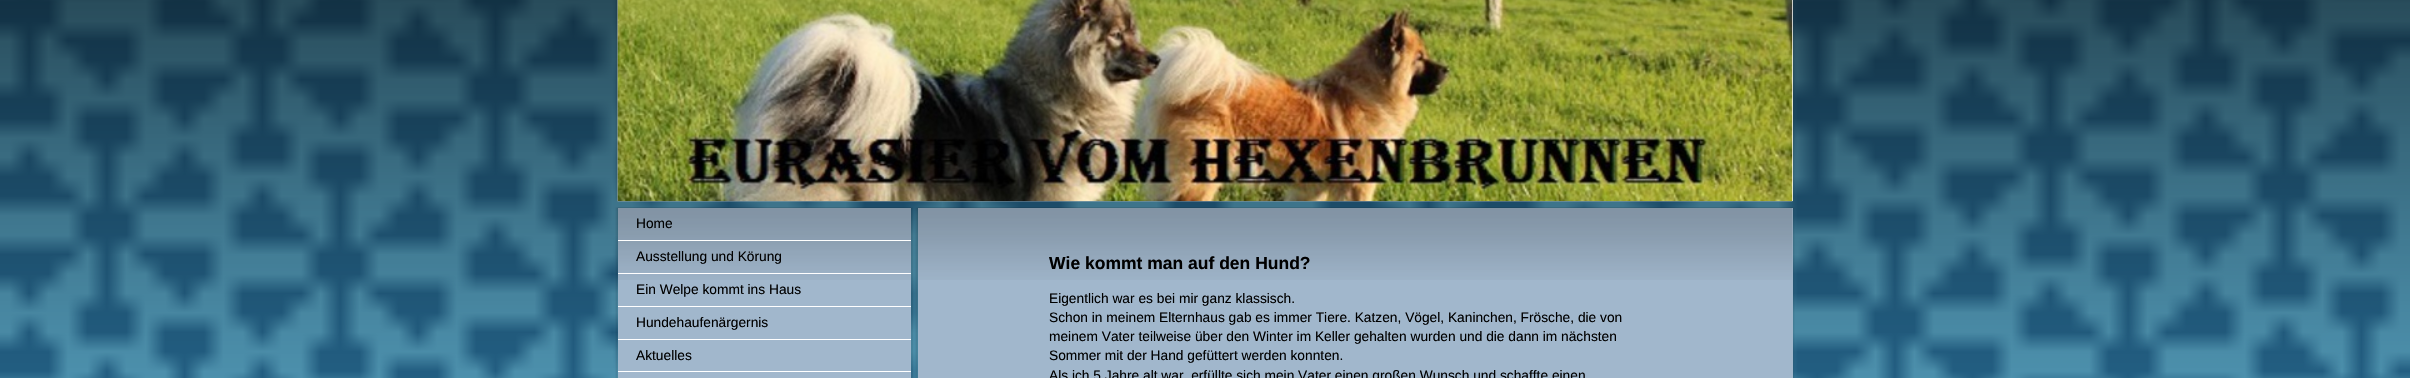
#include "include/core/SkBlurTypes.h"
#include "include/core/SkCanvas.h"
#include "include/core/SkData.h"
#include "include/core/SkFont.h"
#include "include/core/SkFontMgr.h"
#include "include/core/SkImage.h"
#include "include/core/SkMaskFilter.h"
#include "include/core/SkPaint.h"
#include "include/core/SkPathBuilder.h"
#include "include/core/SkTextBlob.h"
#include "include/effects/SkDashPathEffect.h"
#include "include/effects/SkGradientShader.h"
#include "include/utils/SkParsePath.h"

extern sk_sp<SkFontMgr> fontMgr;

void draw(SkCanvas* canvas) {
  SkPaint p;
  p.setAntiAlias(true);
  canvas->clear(SK_ColorWHITE);
  canvas->drawImageRect(SkImages::DeferredFromEncodedData(SkData::MakeFromFileName("images/1.png")), SkRect::MakeLTRB(0, 0, 2410, 378), SkSamplingOptions());
  canvas->drawImageRect(SkImages::DeferredFromEncodedData(SkData::MakeFromFileName("images/2.png")), SkRect::MakeLTRB(0, 0, 2410, 378), SkSamplingOptions());
  canvas->drawImageRect(SkImages::DeferredFromEncodedData(SkData::MakeFromFileName("images/3.png")), SkRect::MakeLTRB(615, 0, 1795, 202), SkSamplingOptions());
  p.setColor(SK_ColorWHITE);
  canvas->drawRect(SkRect::MakeLTRB(1792, 0, 1793, 201), p);
  canvas->drawImageRect(SkImages::DeferredFromEncodedData(SkData::MakeFromFileName("images/4.png")), SkRect::MakeLTRB(617, 0, 1793, 202), SkSamplingOptions());
  canvas->drawImageRect(SkImages::DeferredFromEncodedData(SkData::MakeFromFileName("images/5.png")), SkRect::MakeLTRB(615, 207, 913, 378), SkSamplingOptions());
  p.setColor(SkColorSetRGB(161, 183, 204));
  canvas->drawRect(SkRect::MakeLTRB(618, 208, 911, 378), p);
  canvas->drawImageRect(SkImages::DeferredFromEncodedData(SkData::MakeFromFileName("images/6.png")), SkRect::MakeLTRB(617, 207, 912, 280), SkSamplingOptions());
  p.setColor(SK_ColorWHITE);
  canvas->drawRect(SkRect::MakeLTRB(618, 240, 911, 241), p);
  canvas->drawRect(SkRect::MakeLTRB(618, 273, 911, 274), p);
  canvas->drawRect(SkRect::MakeLTRB(618, 306, 911, 307), p);
  canvas->drawRect(SkRect::MakeLTRB(618, 339, 911, 340), p);
  canvas->drawRect(SkRect::MakeLTRB(618, 371, 911, 372), p);
  canvas->drawImageRect(SkImages::DeferredFromEncodedData(SkData::MakeFromFileName("images/7.png")), SkRect::MakeLTRB(915, 207, 1795, 378), SkSamplingOptions());
  p.setColor(SkColorSetRGB(161, 183, 204));
  canvas->drawRect(SkRect::MakeLTRB(918, 208, 1793, 378), p);
  canvas->drawImageRect(SkImages::DeferredFromEncodedData(SkData::MakeFromFileName("images/8.png")), SkRect::MakeLTRB(917, 207, 1793, 280), SkSamplingOptions());
  SkFont font1(fontMgr->matchFamilyStyle("Liberation Sans", SkFontStyle::Normal()), 13.75f);
  font1.setSubpixel(true);
  p.setColor(SK_ColorBLACK);
  canvas->drawString("Home", 636, 228, font1, p);
  canvas->drawString("Ausstellung und Körung", 636, 261, font1, p);
  canvas->drawString("Ein Welpe kommt ins Haus", 636, 294, font1, p);
  canvas->drawString("Hundehaufenärgernis", 636, 327, font1, p);
  canvas->drawString("Aktuelles", 636, 360, font1, p);
  SkFont font2(fontMgr->matchFamilyStyle("Liberation Sans", SkFontStyle::Bold()), 17.5f);
  font2.setSubpixel(true);
  canvas->drawString("Wie kommt man auf den Hund?", 1049, 269, font2, p);
  canvas->drawString("Eigentlich war es bei mir ganz klassisch.", 1049, 303, font1, p);
  canvas->drawString("Schon in meinem Elternhaus gab es immer Tiere. Katzen, Vögel, Kaninchen, Frösche, die von", 1049, 322, font1, p);
  canvas->drawString("meinem Vater teilweise über den Winter im Keller gehalten wurden und die dann im nächsten", 1049, 341, font1, p);
  canvas->drawString("Sommer mit der Hand gefüttert werden konnten.", 1049, 360, font1, p);
  canvas->drawString("Als ich 5 Jahre alt war, erfüllte sich mein Vater einen großen Wunsch und schaffte einen", 1049, 380, font1, p);
}
